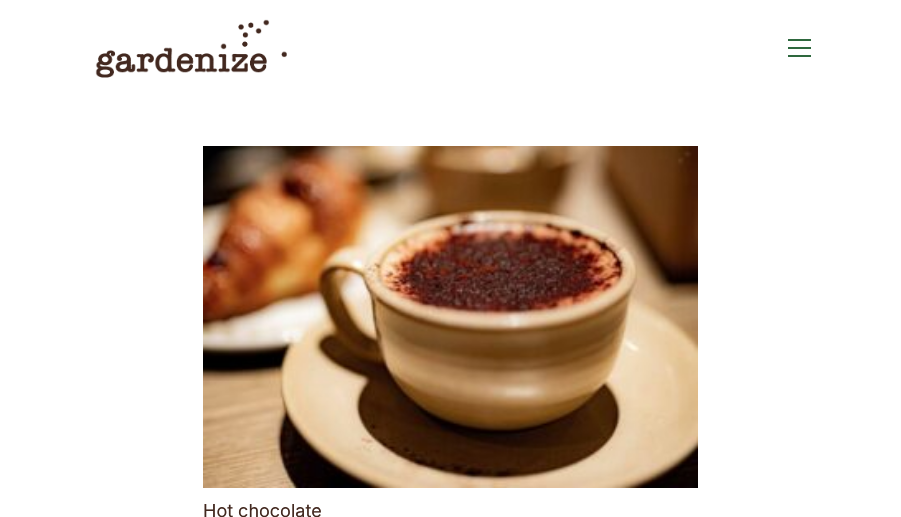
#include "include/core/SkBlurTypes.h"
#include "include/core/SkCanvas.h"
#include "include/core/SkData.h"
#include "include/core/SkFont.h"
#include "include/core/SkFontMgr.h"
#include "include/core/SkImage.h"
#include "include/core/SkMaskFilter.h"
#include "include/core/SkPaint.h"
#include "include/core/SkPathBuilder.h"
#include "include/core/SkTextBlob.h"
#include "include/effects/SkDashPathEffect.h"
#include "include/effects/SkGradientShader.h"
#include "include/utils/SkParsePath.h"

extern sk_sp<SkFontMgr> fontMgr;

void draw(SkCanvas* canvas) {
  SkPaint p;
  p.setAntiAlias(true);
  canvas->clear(SK_ColorWHITE);
  canvas->drawImageRect(SkImages::DeferredFromEncodedData(SkData::MakeFromFileName("images/1.png")), SkRect::MakeLTRB(95, 19, 287, 78), SkSamplingOptions());
  p.setColor(SkColorSetRGB(46, 104, 62));
  canvas->drawRect(SkRect::MakeLTRB(788, 39, 811, 41), p);
  canvas->drawRect(SkRect::MakeLTRB(788, 47, 811, 49), p);
  canvas->drawRect(SkRect::MakeLTRB(788, 55, 811, 57), p);
  canvas->drawImageRect(SkImages::DeferredFromEncodedData(SkData::MakeFromFileName("images/2.png")), SkRect::MakeLTRB(203, 146, 698, 488), SkSamplingOptions());
  SkFont font1(fontMgr->matchFamilyStyle("Inter", SkFontStyle::Normal()), 18);
  font1.setSubpixel(true);
  p.setColor(SkColorSetRGB(66, 40, 31));
  canvas->drawString("Hot chocolate", 203, 517, font1, p);
}
